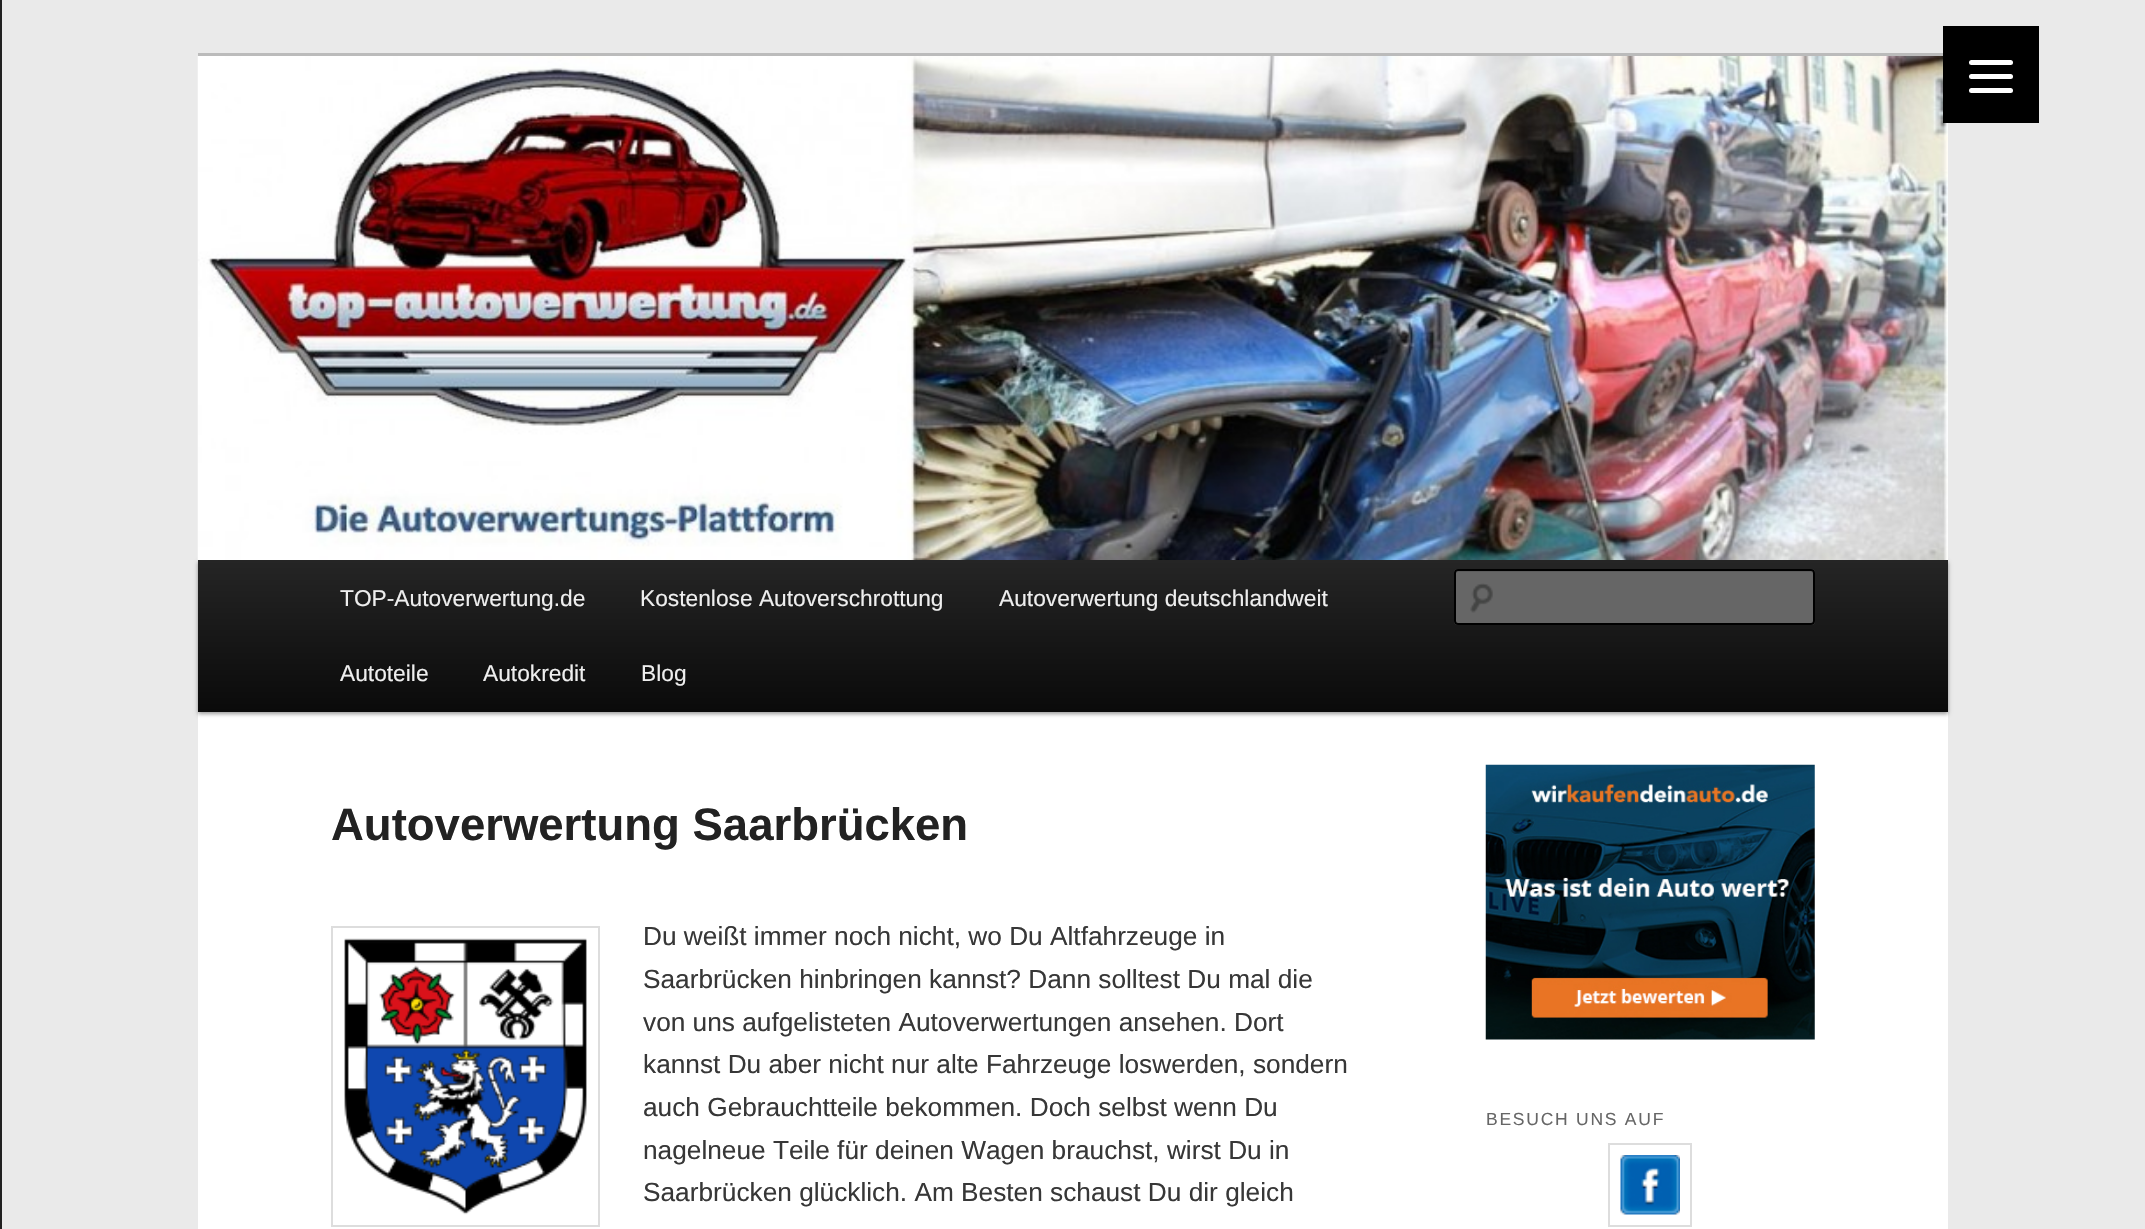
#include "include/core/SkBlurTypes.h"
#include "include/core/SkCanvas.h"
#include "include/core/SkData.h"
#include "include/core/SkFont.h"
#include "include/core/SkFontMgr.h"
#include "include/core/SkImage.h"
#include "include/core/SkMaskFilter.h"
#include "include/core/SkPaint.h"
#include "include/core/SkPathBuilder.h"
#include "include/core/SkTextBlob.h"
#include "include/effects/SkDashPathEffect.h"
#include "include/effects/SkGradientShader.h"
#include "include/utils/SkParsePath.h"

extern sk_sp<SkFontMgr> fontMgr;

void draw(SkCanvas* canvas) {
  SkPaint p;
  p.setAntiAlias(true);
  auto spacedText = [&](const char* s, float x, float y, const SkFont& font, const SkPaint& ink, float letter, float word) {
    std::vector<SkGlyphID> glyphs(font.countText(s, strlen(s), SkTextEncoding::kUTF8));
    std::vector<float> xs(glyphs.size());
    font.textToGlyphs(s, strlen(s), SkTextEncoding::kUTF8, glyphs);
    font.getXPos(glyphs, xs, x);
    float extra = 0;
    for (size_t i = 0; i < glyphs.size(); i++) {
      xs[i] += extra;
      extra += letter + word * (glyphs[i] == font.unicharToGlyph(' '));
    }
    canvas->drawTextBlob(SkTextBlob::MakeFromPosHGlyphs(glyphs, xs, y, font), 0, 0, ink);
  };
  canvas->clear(SkColorSetRGB(234, 234, 234));
  p.setColor(SkColorSetRGB(33, 33, 33));
  canvas->drawRect(SkRect::MakeLTRB(0, 0, 2, 1229), p);
  p.setColor(SkColorSetRGB(187, 187, 187));
  canvas->drawRect(SkRect::MakeLTRB(198, 53, 1948, 56), p);
  p.setColor(SK_ColorWHITE);
  canvas->drawRect(SkRect::MakeLTRB(198, 123, 1948, 1229), p);
  p.setColor(SkColorSetARGB(102, 0, 0, 0));
  p.setMaskFilter(SkMaskFilter::MakeBlur(kNormal_SkBlurStyle, 2));
  canvas->drawRect(SkRect::MakeLTRB(198, 562, 1948, 714), p);
  p.setMaskFilter(nullptr);
  canvas->drawImageRect(SkImages::DeferredFromEncodedData(SkData::MakeFromFileName("images/1.png")), SkRect::MakeLTRB(197, 56, 1948, 560), SkSamplingOptions());
  p.setColor(SK_ColorBLACK);
  canvas->drawRect(SkRect::MakeLTRB(1943, 26, 2039, 123), p);
  p.setColor(SK_ColorWHITE);
  canvas->drawRoundRect(SkRect::MakeLTRB(1969, 74, 2013, 79), 2.5f, 2.5f, p);
  canvas->drawRoundRect(SkRect::MakeLTRB(1969, 60, 2013, 65), 2.5f, 2.5f, p);
  canvas->drawRoundRect(SkRect::MakeLTRB(1969, 88, 2013, 93), 2.5f, 2.5f, p);
  {
    const SkColor colors[] = {SkColorSetRGB(37, 37, 37), SkColorSetRGB(10, 10, 10)};
    const float stops[] = {0, 1};
    const SkPoint ends[] = {{1073, 560}, {1073, 712}};
    p.setShader(SkGradientShader::MakeLinear(ends, colors, stops, 2, SkTileMode::kClamp));
    p.setAlpha(255);
  }
  canvas->drawRect(SkRect::MakeLTRB(198, 560, 1948, 712), p);
  p.setShader(nullptr);
  p.setColor(SkColorSetRGB(102, 102, 102));
  canvas->drawRoundRect(SkRect::MakeLTRB(1454, 569, 1815, 625), 4, 4, p);
  canvas->drawImageRect(SkImages::DeferredFromEncodedData(SkData::MakeFromFileName("images/2.png")), SkRect::MakeLTRB(1470, 583, 1493, 613), SkSamplingOptions());
  p.setColor(SkColorSetRGB(92, 92, 92));
  canvas->drawPath(SkPathBuilder().moveTo(1458, 572).lineTo(1811, 572).cubicTo(1812, 572, 1813, 573, 1813, 574).cubicTo(1813, 573, 1813, 571, 1811, 571).lineTo(1458, 571).cubicTo(1456, 571, 1456, 573, 1456, 574).cubicTo(1456, 573, 1457, 572, 1458, 572).close().detach(), p);
  p.setStyle(SkPaint::kStroke_Style);
  p.setStrokeWidth(2);
  p.setColor(SK_ColorBLACK);
  canvas->drawRoundRect(SkRect::MakeLTRB(1455, 570, 1814, 624), 3, 3, p);
  p.setColor(SkColorSetRGB(221, 221, 221));
  canvas->drawRect(SkRect::MakeLTRB(332, 927, 599, 1226), p);
  canvas->drawImageRect(SkImages::DeferredFromEncodedData(SkData::MakeFromFileName("images/3.png")), SkRect::MakeLTRB(344, 938, 587, 1215), SkSamplingOptions());
  canvas->drawImageRect(SkImages::DeferredFromEncodedData(SkData::MakeFromFileName("images/4.png")), SkRect::MakeLTRB(1485, 764, 1815, 1040), SkSamplingOptions());
  canvas->drawRect(SkRect::MakeLTRB(1609, 1144, 1691, 1226), p);
  canvas->drawImageRect(SkImages::DeferredFromEncodedData(SkData::MakeFromFileName("images/5.png")), SkRect::MakeLTRB(1620, 1155, 1680, 1215), SkSamplingOptions());
  SkFont font1(fontMgr->matchFamilyStyle("Liberation Sans", SkFontStyle::Normal()), 22.75f);
  font1.setSubpixel(true);
  p.setStyle(SkPaint::kFill_Style);
  p.setColor(SkColorSetRGB(238, 238, 238));
  canvas->drawString("TOP-Autoverwertung.de", 340, 606, font1, p);
  canvas->drawString("Kostenlose Autoverschrottung", 640, 606, font1, p);
  canvas->drawString("Autoverwertung deutschlandweit", 999, 606, font1, p);
  canvas->drawString("Autoteile", 340, 681, font1, p);
  canvas->drawString("Autokredit", 483, 681, font1, p);
  canvas->drawString("Blog", 641, 681, font1, p);
  SkFont font2(fontMgr->matchFamilyStyle("Liberation Sans", SkFontStyle::Bold()), 45.5f);
  font2.setSubpixel(true);
  p.setColor(SkColorSetRGB(34, 34, 34));
  canvas->drawString("Autoverwertung Saarbrücken", 331, 840, font2, p);
  SkFont font3(fontMgr->matchFamilyStyle("Liberation Sans", SkFontStyle::Normal()), 26.25f);
  font3.setSubpixel(true);
  p.setColor(SkColorSetRGB(55, 55, 55));
  canvas->drawString("Du weißt immer noch nicht, wo Du Altfahrzeuge in", 643, 945, font3, p);
  canvas->drawString("Saarbrücken hinbringen kannst? Dann solltest Du mal die", 643, 988, font3, p);
  canvas->drawString("von uns aufgelisteten Autoverwertungen ansehen. Dort", 643, 1031, font3, p);
  canvas->drawString("kannst Du aber nicht nur alte Fahrzeuge loswerden, sondern", 643, 1073, font3, p);
  canvas->drawString("auch Gebrauchtteile bekommen. Doch selbst wenn Du", 643, 1116, font3, p);
  canvas->drawString("nagelneue Teile für deinen Wagen brauchst, wirst Du in", 643, 1159, font3, p);
  canvas->drawString("Saarbrücken glücklich. Am Besten schaust Du dir gleich", 643, 1201, font3, p);
  SkFont font4(fontMgr->matchFamilyStyle("Liberation Sans", SkFontStyle::Normal()), 17.5f);
  font4.setSubpixel(true);
  p.setColor(SkColorSetRGB(102, 102, 102));
  spacedText("BESUCH UNS AUF", 1486, 1125, font4, p, 1.75f, 0);
}
